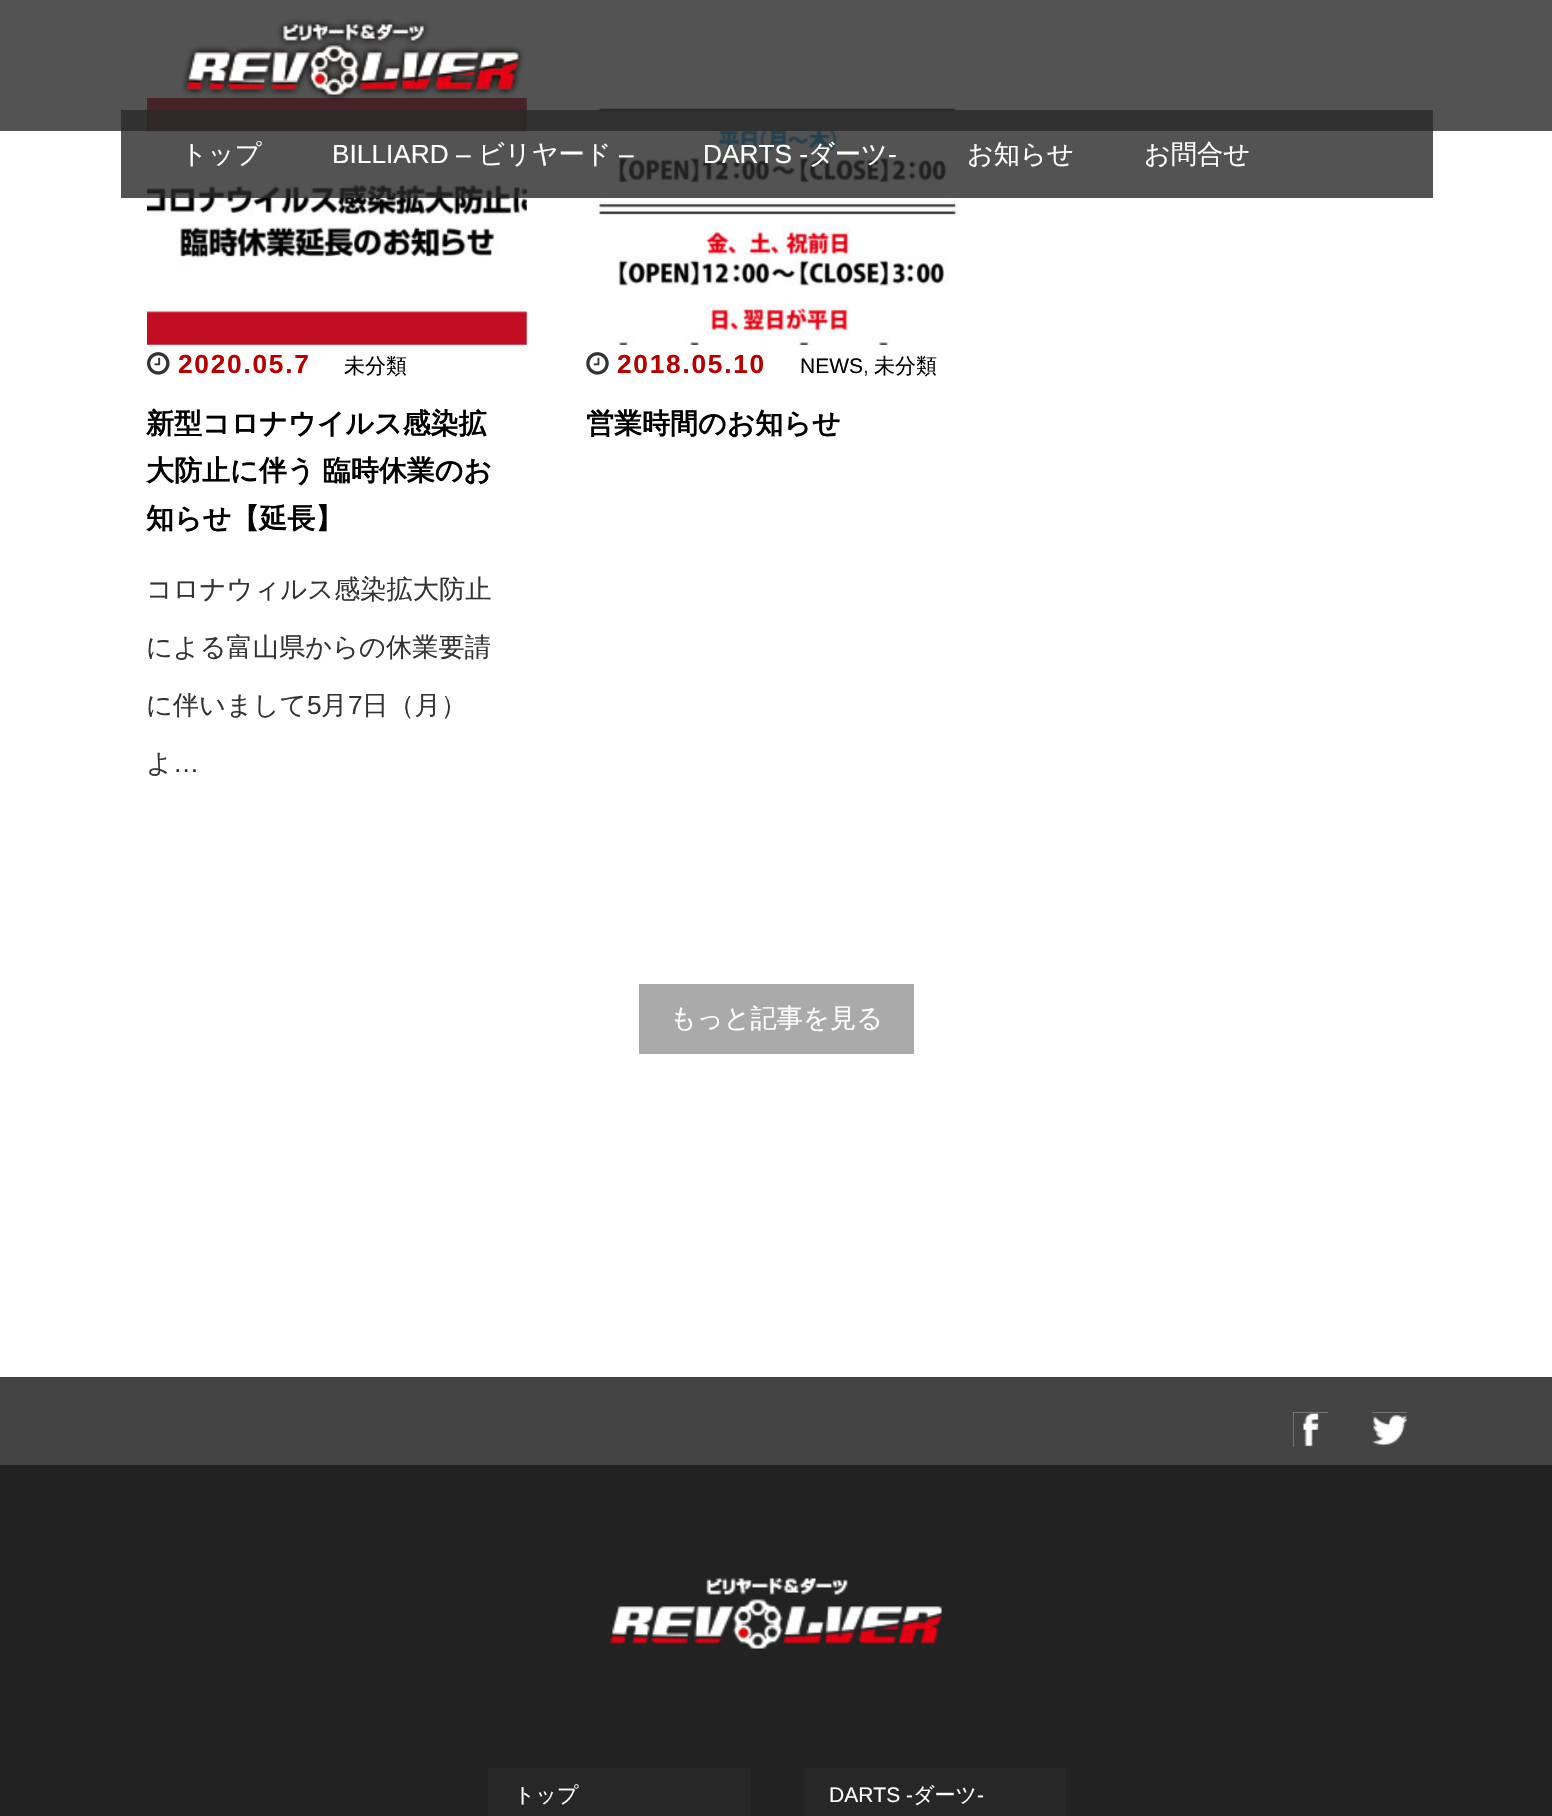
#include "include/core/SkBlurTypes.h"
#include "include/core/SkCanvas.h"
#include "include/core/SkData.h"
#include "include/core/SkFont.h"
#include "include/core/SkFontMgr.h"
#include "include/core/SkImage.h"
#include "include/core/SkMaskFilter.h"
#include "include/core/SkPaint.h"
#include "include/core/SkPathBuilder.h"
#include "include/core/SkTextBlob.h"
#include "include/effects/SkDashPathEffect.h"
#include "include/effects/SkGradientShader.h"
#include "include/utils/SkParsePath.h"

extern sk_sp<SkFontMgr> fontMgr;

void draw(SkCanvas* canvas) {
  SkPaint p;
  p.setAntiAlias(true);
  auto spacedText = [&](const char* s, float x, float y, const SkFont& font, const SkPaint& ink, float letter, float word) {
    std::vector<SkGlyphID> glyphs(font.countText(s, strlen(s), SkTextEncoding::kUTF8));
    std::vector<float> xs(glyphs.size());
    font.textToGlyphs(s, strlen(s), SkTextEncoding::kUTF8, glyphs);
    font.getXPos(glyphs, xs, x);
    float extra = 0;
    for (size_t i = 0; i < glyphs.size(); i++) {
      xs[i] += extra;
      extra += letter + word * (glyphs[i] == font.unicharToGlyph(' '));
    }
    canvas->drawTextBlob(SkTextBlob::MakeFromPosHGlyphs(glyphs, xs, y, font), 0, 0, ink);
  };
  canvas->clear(SK_ColorWHITE);
  canvas->drawImageRect(SkImages::DeferredFromEncodedData(SkData::MakeFromFileName("images/2.png")), SkRect::MakeLTRB(147, 98, 527, 345), SkSamplingOptions());
  canvas->drawImageRect(SkImages::DeferredFromEncodedData(SkData::MakeFromFileName("images/4.png")), SkRect::MakeLTRB(596, 107, 959, 345), SkSamplingOptions());
  p.setColor(SkColorSetARGB(204, 40, 40, 40));
  canvas->drawRect(SkRect::MakeLTRB(0, 0, 1552, 131), p);
  canvas->drawImageRect(SkImages::DeferredFromEncodedData(SkData::MakeFromFileName("images/1.png")), SkRect::MakeLTRB(182, 19, 524, 101), SkSamplingOptions());
  canvas->drawRect(SkRect::MakeLTRB(121, 110, 1433, 198), p);
  canvas->drawImageRect(SkImages::DeferredFromEncodedData(SkData::MakeFromFileName("images/3.png")), SkRect::MakeLTRB(147, 352, 170, 375), SkSamplingOptions());
  canvas->drawImageRect(SkImages::DeferredFromEncodedData(SkData::MakeFromFileName("images/5.png")), SkRect::MakeLTRB(586, 352, 609, 375), SkSamplingOptions());
  p.setColor(SkColorSetRGB(170, 170, 170));
  canvas->drawRect(SkRect::MakeLTRB(639, 984, 914, 1054), p);
  p.setColor(SkColorSetRGB(68, 68, 68));
  canvas->drawRect(SkRect::MakeLTRB(0, 1377, 1552, 1465), p);
  p.setColor(SK_ColorWHITE);
  canvas->drawRect(SkRect::MakeLTRB(1293, 1412, 1328, 1447), p);
  canvas->drawImageRect(SkImages::DeferredFromEncodedData(SkData::MakeFromFileName("images/6.png")), SkRect::MakeLTRB(1293, 1412, 1328, 1447), SkSamplingOptions());
  canvas->drawRect(SkRect::MakeLTRB(1372, 1412, 1407, 1447), p);
  canvas->drawImageRect(SkImages::DeferredFromEncodedData(SkData::MakeFromFileName("images/7.png")), SkRect::MakeLTRB(1372, 1412, 1407, 1447), SkSamplingOptions());
  p.setColor(SkColorSetRGB(34, 34, 34));
  canvas->drawRect(SkRect::MakeLTRB(0, 1465, 1552, 1816), p);
  canvas->drawImageRect(SkImages::DeferredFromEncodedData(SkData::MakeFromFileName("images/8.png")), SkRect::MakeLTRB(610, 1578, 942, 1649), SkSamplingOptions());
  p.setColor(SkColorSetRGB(39, 39, 39));
  canvas->drawRect(SkRect::MakeLTRB(488, 1768, 751, 1816), p);
  canvas->drawRect(SkRect::MakeLTRB(803, 1768, 1066, 1816), p);
  SkFont font1(fontMgr->matchFamilyStyle("WenQuanYi Zen Hei", SkFontStyle(500, SkFontStyle::kNormal_Width, SkFontStyle::kUpright_Slant)), 26.25f);
  font1.setSubpixel(true);
  p.setColor(SK_ColorWHITE);
  canvas->drawString("トップ", 181, 163, font1, p);
  SkFont font2(fontMgr->matchFamilyStyle("Liberation Sans", SkFontStyle::Normal()), 26.25f);
  font2.setSubpixel(true);
  canvas->drawString("BILLIARD –", 332, 163, font2, p);
  canvas->drawString("ビリヤード", 478, 163, font1, p);
  canvas->drawString("–", 619, 163, font2, p);
  canvas->drawString("DARTS -", 703, 163, font2, p);
  canvas->drawString("ダーツ", 808, 163, font1, p);
  canvas->drawString("-", 888, 163, font2, p);
  canvas->drawString("お知らせ", 967, 163, font1, p);
  canvas->drawString("お問合せ", 1144, 163, font1, p);
  SkFont font3(fontMgr->matchFamilyStyle("Liberation Sans", SkFontStyle::Bold()), 26.25f);
  font3.setSubpixel(true);
  p.setColor(SkColorSetRGB(184, 0, 0));
  spacedText("2020.05.7", 178, 373, font3, p, 1.75f, 0);
  SkFont font4(fontMgr->matchFamilyStyle("WenQuanYi Zen Hei", SkFontStyle(500, SkFontStyle::kNormal_Width, SkFontStyle::kUpright_Slant)), 21);
  font4.setSubpixel(true);
  p.setColor(SK_ColorBLACK);
  canvas->drawString("未分類", 344, 373, font4, p);
  SkFont font5(fontMgr->matchFamilyStyle("WenQuanYi Zen Hei", SkFontStyle::Bold()), 28);
  font5.setSubpixel(true);
  canvas->drawString("新型コロナウイルス感染拡", 146, 433, font5, p);
  spacedText("大防止に伴う 臨時休業のお", 146, 480, font5, p, 0, -1);
  canvas->drawString("知らせ【延長】", 146, 528, font5, p);
  p.setColor(SkColorSetRGB(51, 51, 51));
  canvas->drawString("コロナウィルス感染拡大防止", 146, 598, font1, p);
  canvas->drawString("による富山県からの休業要請", 146, 656, font1, p);
  canvas->drawString("に伴いまして", 146, 714, font1, p);
  canvas->drawString("5", 307, 714, font2, p);
  canvas->drawString("月", 321, 714, font1, p);
  canvas->drawString("7", 348, 714, font2, p);
  canvas->drawString("日（月）", 362, 714, font1, p);
  canvas->drawString("よ", 146, 772, font1, p);
  canvas->drawString("…", 173, 772, font2, p);
  p.setColor(SkColorSetRGB(184, 0, 0));
  spacedText("2018.05.10", 617, 373, font3, p, 1.75f, 0);
  SkFont font6(fontMgr->matchFamilyStyle("Liberation Sans", SkFontStyle::Normal()), 21);
  font6.setSubpixel(true);
  p.setColor(SK_ColorBLACK);
  canvas->drawString("NEWS", 800, 373, font6, p);
  p.setColor(SkColorSetRGB(51, 51, 51));
  canvas->drawString(",", 863, 373, font6, p);
  p.setColor(SK_ColorBLACK);
  canvas->drawString("未分類", 874, 373, font4, p);
  canvas->drawString("営業時間のお知らせ", 586, 433, font5, p);
  p.setColor(SK_ColorWHITE);
  canvas->drawString("もっと記事を見る", 670, 1027, font1, p);
  canvas->drawString("トップ", 514, 1802, font4, p);
  canvas->drawString("DARTS -", 829, 1802, font6, p);
  canvas->drawString("ダーツ", 913, 1802, font4, p);
  canvas->drawString("-", 977, 1802, font6, p);
}
